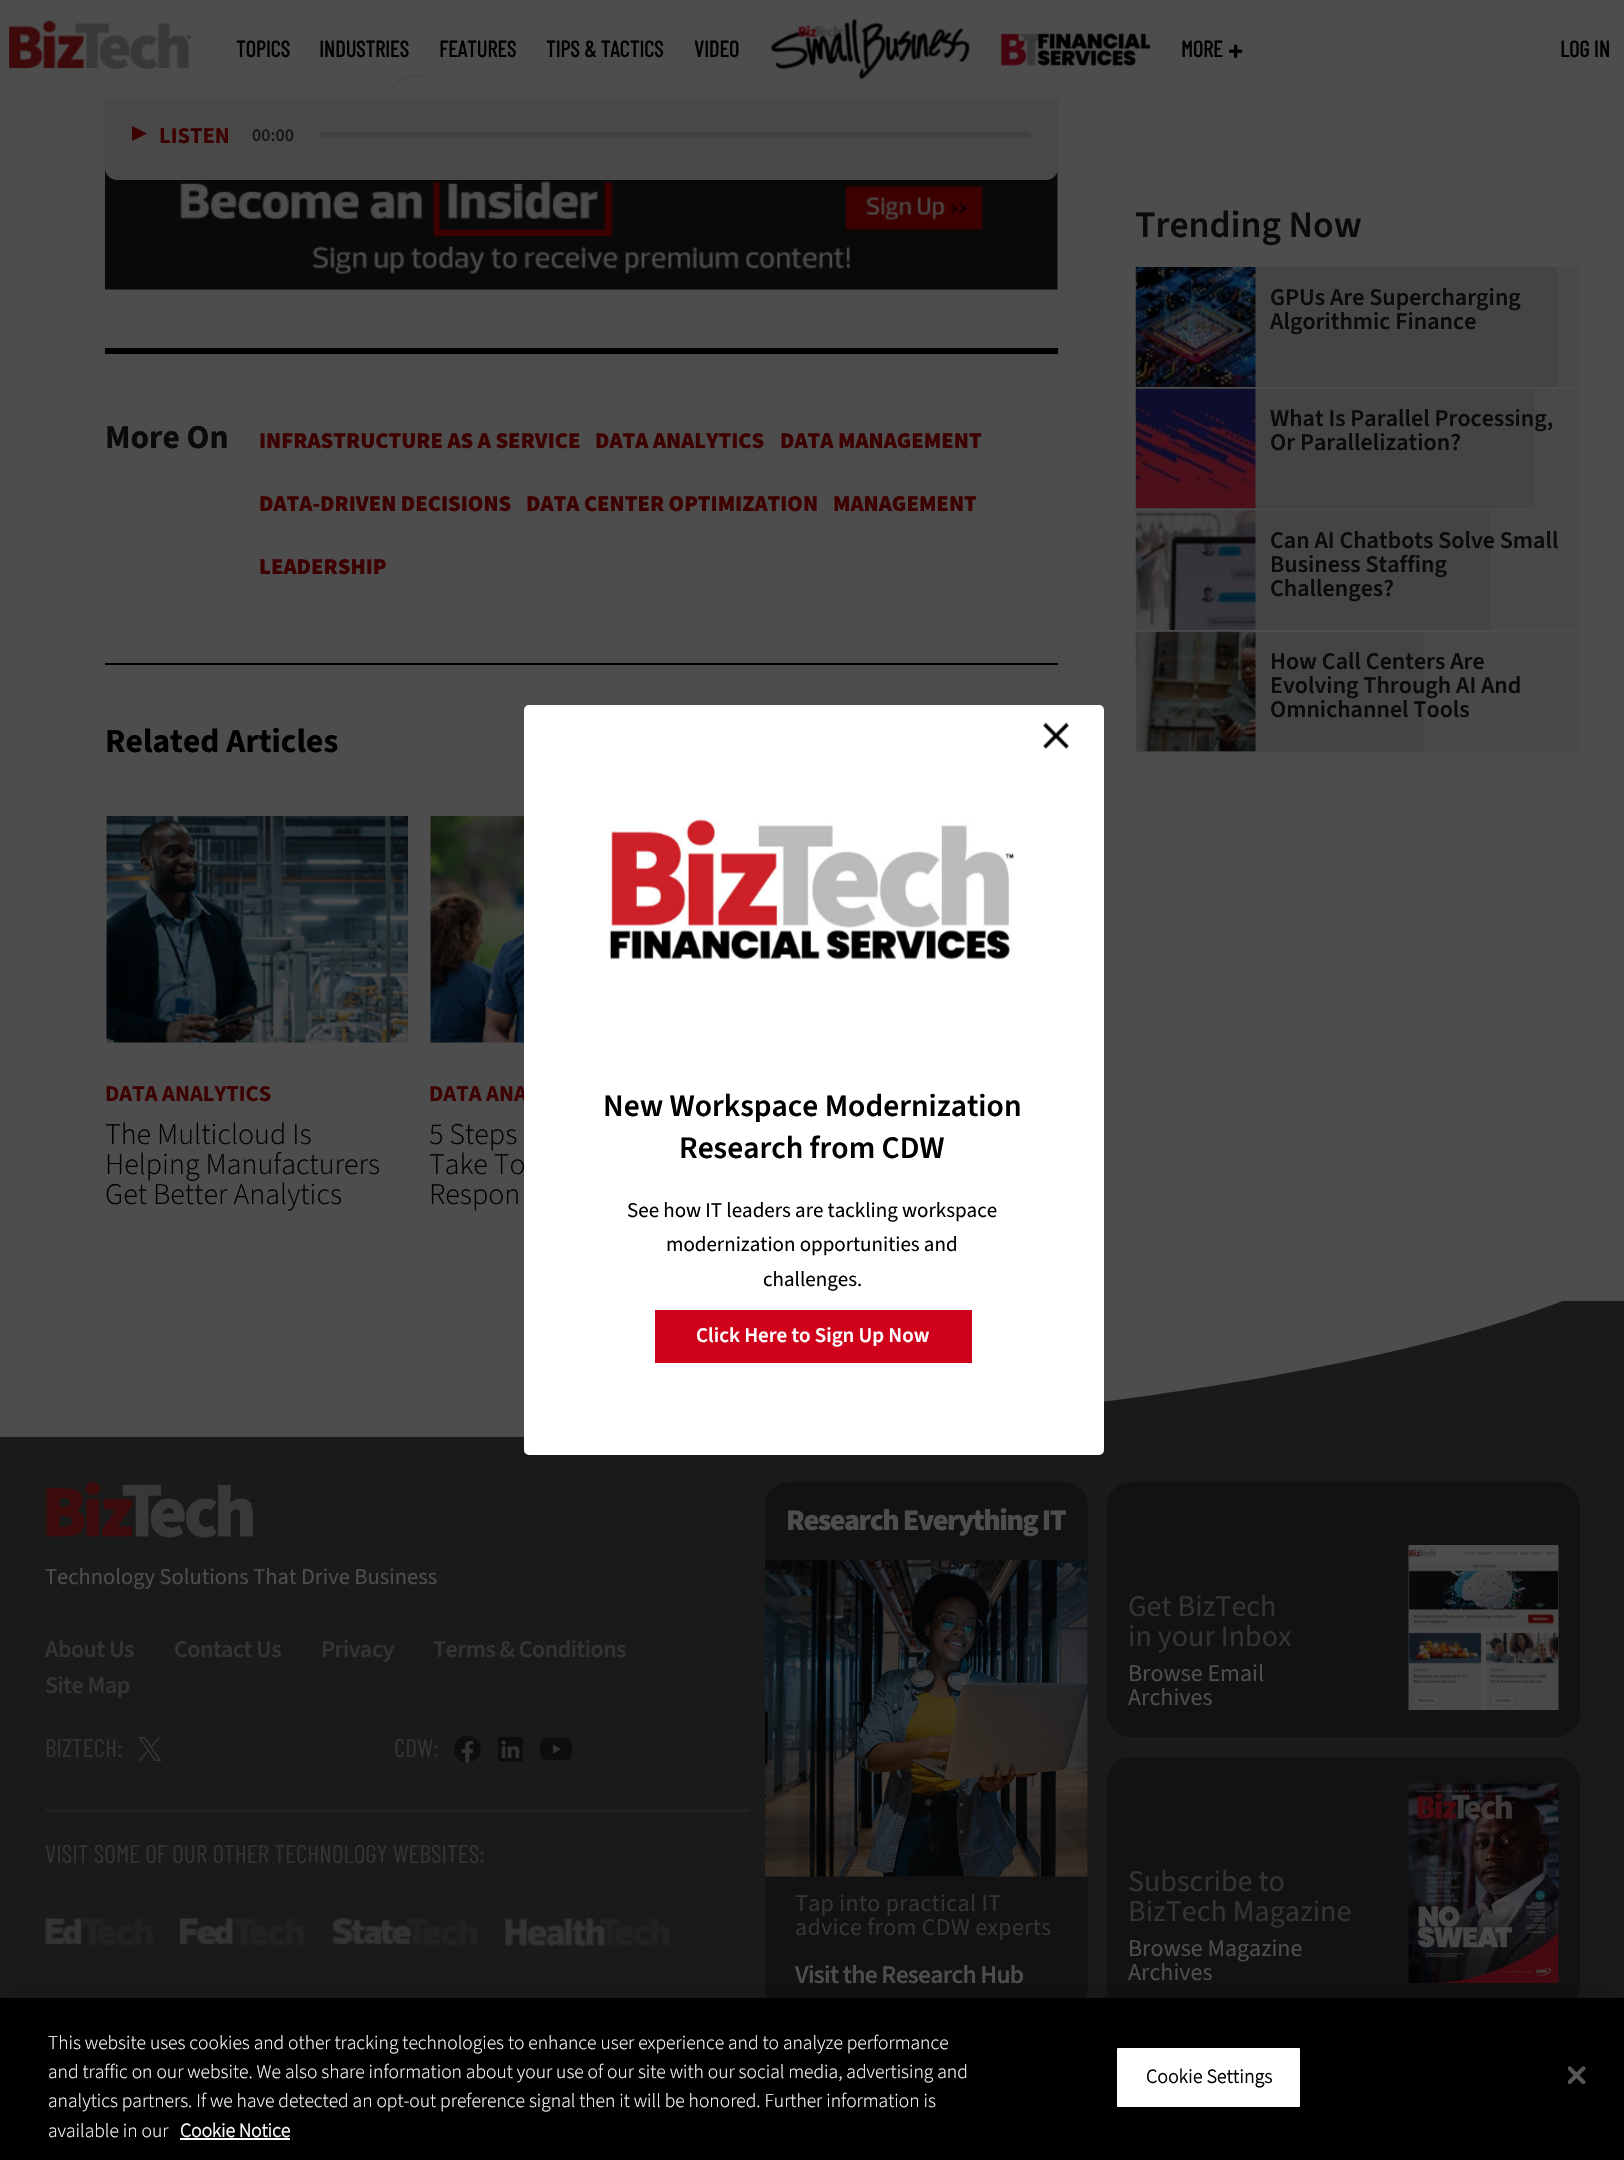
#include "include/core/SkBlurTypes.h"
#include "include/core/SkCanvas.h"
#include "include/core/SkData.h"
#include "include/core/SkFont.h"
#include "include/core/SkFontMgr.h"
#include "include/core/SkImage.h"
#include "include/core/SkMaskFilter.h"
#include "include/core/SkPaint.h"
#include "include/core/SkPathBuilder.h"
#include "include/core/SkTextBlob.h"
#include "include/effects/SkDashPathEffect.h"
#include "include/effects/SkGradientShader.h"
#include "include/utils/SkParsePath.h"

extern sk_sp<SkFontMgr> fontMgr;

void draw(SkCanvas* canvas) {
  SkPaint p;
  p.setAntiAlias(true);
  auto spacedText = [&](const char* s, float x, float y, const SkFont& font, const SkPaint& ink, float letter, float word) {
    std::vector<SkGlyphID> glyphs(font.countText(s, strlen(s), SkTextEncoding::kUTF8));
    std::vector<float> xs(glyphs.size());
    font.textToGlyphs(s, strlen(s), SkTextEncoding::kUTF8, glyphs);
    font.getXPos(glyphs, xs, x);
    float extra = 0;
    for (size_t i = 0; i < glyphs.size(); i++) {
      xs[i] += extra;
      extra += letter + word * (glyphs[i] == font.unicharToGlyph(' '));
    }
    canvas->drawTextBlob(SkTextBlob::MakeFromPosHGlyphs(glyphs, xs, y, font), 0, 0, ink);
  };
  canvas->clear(SkColorSetRGB(77, 77, 77));
  canvas->drawImageRect(SkImages::DeferredFromEncodedData(SkData::MakeFromFileName("images/5.png")), SkRect::MakeLTRB(390, 75, 438, 90), SkSamplingOptions());
  canvas->drawImageRect(SkImages::DeferredFromEncodedData(SkData::MakeFromFileName("images/6.png")), SkRect::MakeLTRB(456, 76, 504, 90), SkSamplingOptions());
  canvas->drawImageRect(SkImages::DeferredFromEncodedData(SkData::MakeFromFileName("images/7.png")), SkRect::MakeLTRB(522, 76, 570, 90), SkSamplingOptions());
  canvas->drawImageRect(SkImages::DeferredFromEncodedData(SkData::MakeFromFileName("images/8.png")), SkRect::MakeLTRB(588, 75, 636, 90), SkSamplingOptions());
  canvas->drawImageRect(SkImages::DeferredFromEncodedData(SkData::MakeFromFileName("images/9.png")), SkRect::MakeLTRB(654, 75, 702, 90), SkSamplingOptions());
  canvas->drawImageRect(SkImages::DeferredFromEncodedData(SkData::MakeFromFileName("images/10.png")), SkRect::MakeLTRB(720, 75, 768, 90), SkSamplingOptions());
  canvas->drawImageRect(SkImages::DeferredFromEncodedData(SkData::MakeFromFileName("images/11.png")), SkRect::MakeLTRB(105, 169, 1058, 290), SkSamplingOptions());
  p.setColor(SkColorSetRGB(73, 73, 73));
  canvas->drawPath(SkPathBuilder().moveTo(105, 90).lineTo(1058, 90).lineTo(1058, 168).cubicTo(1058, 174.5f, 1052.5f, 180, 1046, 180).lineTo(117, 180).cubicTo(110.5f, 180, 105, 174.5f, 105, 168).close().detach(), p);
  p.setColor(SkColorSetARGB(240, 77, 77, 77));
  canvas->drawRect(SkRect::MakeLTRB(105, 75, 1058, 98), p);
  canvas->drawImageRect(SkImages::DeferredFromEncodedData(SkData::MakeFromFileName("images/1.png")), SkRect::MakeLTRB(9, 20, 191, 69), SkSamplingOptions());
  canvas->drawImageRect(SkImages::DeferredFromEncodedData(SkData::MakeFromFileName("images/2.png")), SkRect::MakeLTRB(770, 18, 971, 79), SkSamplingOptions());
  canvas->drawImageRect(SkImages::DeferredFromEncodedData(SkData::MakeFromFileName("images/3.png")), SkRect::MakeLTRB(1000, 33, 1151, 66), SkSamplingOptions());
  canvas->drawImageRect(SkImages::DeferredFromEncodedData(SkData::MakeFromFileName("images/4.png")), SkRect::MakeLTRB(1229, 44, 1243, 58), SkSamplingOptions());
  p.setColor(SkColorSetRGB(26, 26, 27));
  canvas->drawPath(SkPathBuilder().moveTo(1624, 1272).cubicTo(1436, 1379, 924, 1431, 650, 1439).lineTo(1624, 1439).close().detach(), p);
  p.setColor(SkColorSetRGB(77, 77, 77));
  canvas->drawRect(SkRect::MakeLTRB(1562, 1272, 1624, 1301), p);
  p.setColor(SkColorSetRGB(61, 0, 0));
  canvas->drawPath(SkPathBuilder().moveTo(132, 141).lineTo(132, 126).lineTo(147, 133.5f).close().detach(), p);
  p.setColor(SkColorSetRGB(65, 65, 65));
  canvas->drawRoundRect(SkRect::MakeLTRB(320, 132, 1031, 138), 3, 3, p);
  p.setColor(SK_ColorBLACK);
  canvas->drawRect(SkRect::MakeLTRB(105, 348, 1058, 354), p);
  canvas->drawRect(SkRect::MakeLTRB(105, 663, 1058, 665), p);
  canvas->drawImageRect(SkImages::DeferredFromEncodedData(SkData::MakeFromFileName("images/12.png")), SkRect::MakeLTRB(106, 816, 408, 1043), SkSamplingOptions());
  canvas->drawImageRect(SkImages::DeferredFromEncodedData(SkData::MakeFromFileName("images/13.png")), SkRect::MakeLTRB(430, 816, 524, 1043), SkSamplingOptions());
  p.setColor(SkColorSetRGB(73, 73, 73));
  canvas->drawRect(SkRect::MakeLTRB(1557, 267, 1580, 387), p);
  p.setColor(SkColorSetRGB(68, 68, 68));
  canvas->drawRect(SkRect::MakeLTRB(1255, 267, 1557, 387), p);
  canvas->drawImageRect(SkImages::DeferredFromEncodedData(SkData::MakeFromFileName("images/16.png")), SkRect::MakeLTRB(1135, 267, 1256, 387), SkSamplingOptions());
  p.setColor(SkColorSetRGB(73, 73, 73));
  canvas->drawRect(SkRect::MakeLTRB(1535, 389, 1580, 509), p);
  p.setColor(SkColorSetRGB(68, 68, 68));
  canvas->drawRect(SkRect::MakeLTRB(1136, 389, 1535, 509), p);
  canvas->drawImageRect(SkImages::DeferredFromEncodedData(SkData::MakeFromFileName("images/17.png")), SkRect::MakeLTRB(1135, 388, 1256, 509), SkSamplingOptions());
  p.setColor(SkColorSetRGB(73, 73, 73));
  canvas->drawRect(SkRect::MakeLTRB(1491, 510, 1580, 630), p);
  p.setColor(SkColorSetRGB(68, 68, 68));
  canvas->drawRect(SkRect::MakeLTRB(1255, 510, 1491, 630), p);
  canvas->drawImageRect(SkImages::DeferredFromEncodedData(SkData::MakeFromFileName("images/18.png")), SkRect::MakeLTRB(1135, 510, 1256, 630), SkSamplingOptions());
  p.setColor(SkColorSetRGB(73, 73, 73));
  canvas->drawRect(SkRect::MakeLTRB(1424, 632, 1580, 752), p);
  p.setColor(SkColorSetRGB(68, 68, 68));
  canvas->drawRect(SkRect::MakeLTRB(1136, 632, 1424, 752), p);
  canvas->drawImageRect(SkImages::DeferredFromEncodedData(SkData::MakeFromFileName("images/19.png")), SkRect::MakeLTRB(1135, 631, 1256, 752), SkSamplingOptions());
  p.setColor(SkColorSetRGB(26, 26, 27));
  canvas->drawRect(SkRect::MakeLTRB(0, 1437, 1624, 1998), p);
  canvas->drawImageRect(SkImages::DeferredFromEncodedData(SkData::MakeFromFileName("images/20.png")), SkRect::MakeLTRB(46, 1482, 255, 1538), SkSamplingOptions());
  p.setColor(SkColorSetRGB(34, 34, 35));
  canvas->drawRect(SkRect::MakeLTRB(45, 1809, 750, 1812), p);
  canvas->drawImageRect(SkImages::DeferredFromEncodedData(SkData::MakeFromFileName("images/21.png")), SkRect::MakeLTRB(138, 1737, 162, 1761), SkSamplingOptions());
  canvas->drawImageRect(SkImages::DeferredFromEncodedData(SkData::MakeFromFileName("images/22.png")), SkRect::MakeLTRB(453, 1735, 481, 1763), SkSamplingOptions());
  canvas->drawImageRect(SkImages::DeferredFromEncodedData(SkData::MakeFromFileName("images/23.png")), SkRect::MakeLTRB(498, 1737, 524, 1762), SkSamplingOptions());
  canvas->drawImageRect(SkImages::DeferredFromEncodedData(SkData::MakeFromFileName("images/24.png")), SkRect::MakeLTRB(540, 1737, 573, 1761), SkSamplingOptions());
  canvas->drawImageRect(SkImages::DeferredFromEncodedData(SkData::MakeFromFileName("images/25.png")), SkRect::MakeLTRB(45, 1918, 153, 1946), SkSamplingOptions());
  canvas->drawImageRect(SkImages::DeferredFromEncodedData(SkData::MakeFromFileName("images/26.png")), SkRect::MakeLTRB(180, 1918, 305, 1946), SkSamplingOptions());
  canvas->drawImageRect(SkImages::DeferredFromEncodedData(SkData::MakeFromFileName("images/27.png")), SkRect::MakeLTRB(331, 1918, 477, 1946), SkSamplingOptions());
  canvas->drawImageRect(SkImages::DeferredFromEncodedData(SkData::MakeFromFileName("images/28.png")), SkRect::MakeLTRB(505, 1918, 669, 1946), SkSamplingOptions());
  p.setColor(SkColorSetRGB(18, 18, 19));
  canvas->drawRoundRect(SkRect::MakeLTRB(765, 1482, 1088, 2012), 24, 24, p);
  canvas->drawImageRect(SkImages::DeferredFromEncodedData(SkData::MakeFromFileName("images/29.png")), SkRect::MakeLTRB(765, 1560, 1088, 1877), SkSamplingOptions());
  canvas->drawRoundRect(SkRect::MakeLTRB(1107, 1482, 1580, 1737), 24, 24, p);
  canvas->drawImageRect(SkImages::DeferredFromEncodedData(SkData::MakeFromFileName("images/30.png")), SkRect::MakeLTRB(1408, 1545, 1559, 1710), SkSamplingOptions());
  canvas->drawRoundRect(SkRect::MakeLTRB(1107, 1757, 1580, 2012), 24, 24, p);
  canvas->drawImageRect(SkImages::DeferredFromEncodedData(SkData::MakeFromFileName("images/31.png")), SkRect::MakeLTRB(1408, 1783, 1559, 1983), SkSamplingOptions());
  p.setColor(SkColorSetARGB(51, 0, 0, 0));
  p.setMaskFilter(SkMaskFilter::MakeBlur(kNormal_SkBlurStyle, 13.5f));
  canvas->drawRect(SkRect::MakeLTRB(0, 1998, 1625, 2160), p);
  p.setMaskFilter(nullptr);
  p.setColor(SK_ColorBLACK);
  canvas->drawRect(SkRect::MakeLTRB(0, 1998, 1624, 2160), p);
  p.setColor(SK_ColorWHITE);
  canvas->drawRect(SkRect::MakeLTRB(180, 2138, 290, 2140), p);
  canvas->drawRoundRect(SkRect::MakeLTRB(1116, 2047, 1301, 2108), 2, 2, p);
  p.setStyle(SkPaint::kStroke_Style);
  p.setStrokeWidth(2);
  p.setColor(SK_ColorBLACK);
  canvas->drawRoundRect(SkRect::MakeLTRB(1116, 2047, 1301, 2108), 2, 2, p);
  canvas->drawImageRect(SkImages::DeferredFromEncodedData(SkData::MakeFromFileName("images/32.png")), SkRect::MakeLTRB(1568, 2066, 1586, 2084), SkSamplingOptions());
  SkFont font1(fontMgr->matchFamilyStyle("Barlow Condensed", SkFontStyle::Bold()), 22.5f);
  font1.setSubpixel(true);
  p.setStyle(SkPaint::kFill_Style);
  canvas->drawString("TOPICS", 236, 57, font1, p);
  canvas->drawString("INDUSTRIES", 319, 57, font1, p);
  canvas->drawString("FEATURES", 439, 57, font1, p);
  canvas->drawString("TIPS & TACTICS", 546, 57, font1, p);
  canvas->drawString("VIDEO", 694, 57, font1, p);
  canvas->drawString("MORE", 1181, 57, font1, p);
  canvas->drawString("LOG IN", 1560, 57, font1, p);
  SkFont font2(fontMgr->matchFamilyStyle("Source Sans 3", SkFontStyle::Bold()), 22.5f);
  font2.setSubpixel(true);
  p.setColor(SkColorSetRGB(61, 0, 0));
  canvas->drawString("LISTEN", 159, 143, font2, p);
  SkFont font3(fontMgr->matchFamilyStyle("Source Sans 3", SkFontStyle(600, SkFontStyle::kNormal_Width, SkFontStyle::kUpright_Slant)), 18);
  font3.setSubpixel(true);
  p.setColor(SkColorSetRGB(23, 23, 24));
  canvas->drawString("00:00", 252, 141, font3, p);
  SkFont font4(fontMgr->matchFamilyStyle("Source Sans 3", SkFontStyle::Bold()), 33.5f);
  font4.setSubpixel(true);
  p.setColor(SkColorSetRGB(11, 9, 10));
  canvas->drawString("More On", 105, 448, font4, p);
  SkFont font5(fontMgr->matchFamilyStyle("Source Sans 3", SkFontStyle(900, SkFontStyle::kNormal_Width, SkFontStyle::kUpright_Slant)), 22.5f);
  font5.setSubpixel(true);
  p.setColor(SkColorSetRGB(61, 0, 0));
  canvas->drawString("INFRASTRUCTURE AS A SERVICE", 259, 448, font5, p);
  canvas->drawString("DATA ANALYTICS", 595, 448, font5, p);
  canvas->drawString("DATA MANAGEMENT", 780, 448, font5, p);
  canvas->drawString("DATA-DRIVEN DECISIONS", 259, 511, font5, p);
  canvas->drawString("DATA CENTER OPTIMIZATION", 526, 511, font5, p);
  canvas->drawString("MANAGEMENT", 833, 511, font5, p);
  canvas->drawString("LEADERSHIP", 259, 574, font5, p);
  p.setColor(SK_ColorBLACK);
  canvas->drawString("Related Articles", 105, 752, font4, p);
  p.setColor(SkColorSetRGB(61, 0, 0));
  canvas->drawString("DATA ANALYTICS", 105, 1101, font2, p);
  SkFont font6(fontMgr->matchFamilyStyle("Source Sans 3", SkFontStyle(300, SkFontStyle::kNormal_Width, SkFontStyle::kUpright_Slant)), 30);
  font6.setSubpixel(true);
  p.setColor(SK_ColorBLACK);
  canvas->drawString("The Multicloud Is", 105, 1144, font6, p);
  canvas->drawString("Helping Manufacturers", 105, 1174, font6, p);
  canvas->drawString("Get Better Analytics", 105, 1204, font6, p);
  p.setColor(SkColorSetRGB(61, 0, 0));
  canvas->drawString("DATA ANA", 429, 1101, font2, p);
  p.setColor(SK_ColorBLACK);
  canvas->drawString("5 Steps", 429, 1144, font6, p);
  canvas->drawString("Take To", 429, 1174, font6, p);
  canvas->drawString("Respon", 429, 1204, font6, p);
  p.setColor(SK_ColorWHITE);
  canvas->drawRoundRect(SkRect::MakeLTRB(524, 705, 1104, 1455), 5, 5, p);
  canvas->drawImageRect(SkImages::DeferredFromEncodedData(SkData::MakeFromFileName("images/14.png")), SkRect::MakeLTRB(1043, 722, 1069, 749), SkSamplingOptions());
  canvas->drawImageRect(SkImages::DeferredFromEncodedData(SkData::MakeFromFileName("images/15.png")), SkRect::MakeLTRB(609, 817, 1014, 960), SkSamplingOptions());
  SkFont font7(fontMgr->matchFamilyStyle("Source Sans 3", SkFontStyle(600, SkFontStyle::kNormal_Width, SkFontStyle::kUpright_Slant)), 31.5f);
  font7.setSubpixel(true);
  p.setColor(SK_ColorBLACK);
  canvas->drawString("New Workspace Modernization", 603, 1116, font7, p);
  canvas->drawString("Research from CDW", 679, 1158, font7, p);
  SkFont font8(fontMgr->matchFamilyStyle("Source Sans 3", SkFontStyle::Normal()), 21);
  font8.setSubpixel(true);
  canvas->drawString("See how IT leaders are tackling workspace", 627, 1217, font8, p);
  canvas->drawString("modernization opportunities and", 666, 1251, font8, p);
  canvas->drawString("challenges.", 763, 1286, font8, p);
  p.setColor(SkColorSetRGB(208, 2, 27));
  canvas->drawRect(SkRect::MakeLTRB(655, 1310, 972, 1363), p);
  SkFont font9(fontMgr->matchFamilyStyle("Source Sans 3", SkFontStyle(600, SkFontStyle::kNormal_Width, SkFontStyle::kUpright_Slant)), 21);
  font9.setSubpixel(true);
  p.setColor(SK_ColorWHITE);
  canvas->drawString("Click Here to Sign Up Now", 696, 1342, font9, p);
  SkFont font10(fontMgr->matchFamilyStyle("Source Sans 3", SkFontStyle(600, SkFontStyle::kNormal_Width, SkFontStyle::kUpright_Slant)), 37.5f);
  font10.setSubpixel(true);
  p.setColor(SkColorSetRGB(11, 9, 10));
  canvas->drawString("Trending Now", 1135, 237, font10, p);
  SkFont font11(fontMgr->matchFamilyStyle("Source Sans 3", SkFontStyle(600, SkFontStyle::kNormal_Width, SkFontStyle::kUpright_Slant)), 24);
  font11.setSubpixel(true);
  canvas->drawString("GPUs Are Supercharging", 1270, 305, font11, p);
  canvas->drawString("Algorithmic Finance", 1270, 329, font11, p);
  canvas->drawString("What Is Parallel Processing,", 1270, 426, font11, p);
  canvas->drawString("Or Parallelization?", 1270, 450, font11, p);
  canvas->drawString("Can AI Chatbots Solve Small", 1270, 548, font11, p);
  canvas->drawString("Business Staffing", 1270, 572, font11, p);
  canvas->drawString("Challenges?", 1270, 596, font11, p);
  canvas->drawString("How Call Centers Are", 1270, 669, font11, p);
  canvas->drawString("Evolving Through AI And", 1270, 693, font11, p);
  canvas->drawString("Omnichannel Tools", 1270, 717, font11, p);
  SkFont font12(fontMgr->matchFamilyStyle("Source Sans 3", SkFontStyle::Normal()), 22.5f);
  font12.setSubpixel(true);
  p.setColor(SkColorSetRGB(77, 77, 77));
  canvas->drawString("Technology Solutions That Drive Business", 45, 1584, font12, p);
  p.setColor(SkColorSetRGB(50, 51, 52));
  spacedText("About Us", 45, 1657, font11, p, -0.5f, 0);
  spacedText("Contact Us", 174, 1657, font11, p, -0.5f, 0);
  spacedText("Privacy", 321, 1657, font11, p, -0.5f, 0);
  spacedText("Terms & Conditions", 433, 1657, font11, p, -0.5f, 0);
  spacedText("Site Map", 45, 1693, font11, p, -0.5f, 0);
  SkFont font13(fontMgr->matchFamilyStyle("Barlow Condensed", SkFontStyle::Normal()), 25.5f);
  font13.setSubpixel(true);
  canvas->drawString("BIZTECH:", 45, 1757, font13, p);
  canvas->drawString("CDW:", 394, 1757, font13, p);
  canvas->drawString("VISIT SOME OF OUR OTHER TECHNOLOGY WEBSITES:", 45, 1863, font13, p);
  SkFont font14(fontMgr->matchFamilyStyle("Source Sans 3", SkFontStyle(900, SkFontStyle::kNormal_Width, SkFontStyle::kUpright_Slant)), 30);
  font14.setSubpixel(true);
  p.setColor(SkColorSetRGB(77, 77, 77));
  spacedText("Research Everything IT", 786, 1530, font14, p, -1.5f, 0);
  SkFont font15(fontMgr->matchFamilyStyle("Source Sans 3", SkFontStyle::Normal()), 24);
  font15.setSubpixel(true);
  p.setColor(SkColorSetRGB(50, 51, 52));
  spacedText("Tap into practical IT", 795, 1911, font15, p, 0.3f, 0);
  spacedText("advice from CDW experts", 795, 1935, font15, p, 0.3f, 0);
  SkFont font16(fontMgr->matchFamilyStyle("Source Sans 3", SkFontStyle(600, SkFontStyle::kNormal_Width, SkFontStyle::kUpright_Slant)), 25.5f);
  font16.setSubpixel(true);
  p.setColor(SkColorSetRGB(77, 77, 77));
  spacedText("Visit the Research Hub", 795, 1983, font16, p, -0.75f, 0);
  SkFont font17(fontMgr->matchFamilyStyle("Source Sans 3", SkFontStyle::Normal()), 30);
  font17.setSubpixel(true);
  p.setColor(SkColorSetRGB(50, 51, 52));
  canvas->drawString("Get BizTech", 1128, 1616, font17, p);
  canvas->drawString("in your Inbox", 1128, 1646, font17, p);
  p.setColor(SkColorSetRGB(77, 77, 77));
  canvas->drawString("Browse Email", 1128, 1681, font15, p);
  canvas->drawString("Archives", 1128, 1705, font15, p);
  p.setColor(SkColorSetRGB(50, 51, 52));
  canvas->drawString("Subscribe to", 1128, 1891, font17, p);
  canvas->drawString("BizTech Magazine", 1128, 1921, font17, p);
  p.setColor(SkColorSetRGB(77, 77, 77));
  canvas->drawString("Browse Magazine", 1128, 1956, font15, p);
  canvas->drawString("Archives", 1128, 1980, font15, p);
  SkFont font18(fontMgr->matchFamilyStyle("Source Sans 3", SkFontStyle(300, SkFontStyle::kNormal_Width, SkFontStyle::kUpright_Slant)), 19.5f);
  font18.setSubpixel(true);
  p.setColor(SK_ColorWHITE);
  canvas->drawString("This website uses cookies and other tracking technologies to enhance user experience and to analyze performance", 48, 2049, font18, p);
  canvas->drawString("and traffic on our website. We also share information about your use of our site with our social media, advertising and", 48, 2078, font18, p);
  canvas->drawString("analytics partners. If we have detected an opt-out preference signal then it will be honored. Further information is", 48, 2107, font18, p);
  canvas->drawString("available in our", 48, 2137, font18, p);
  SkFont font19(fontMgr->matchFamilyStyle("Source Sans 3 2", SkFontStyle::Bold()), 19.5f);
  font19.setSubpixel(true);
  canvas->drawString("Cookie Notice", 180, 2137, font19, p);
  p.setColor(SK_ColorBLACK);
  spacedText("Cookie Settings", 1146, 2083, font19, p, 0.25f, 0);
}
